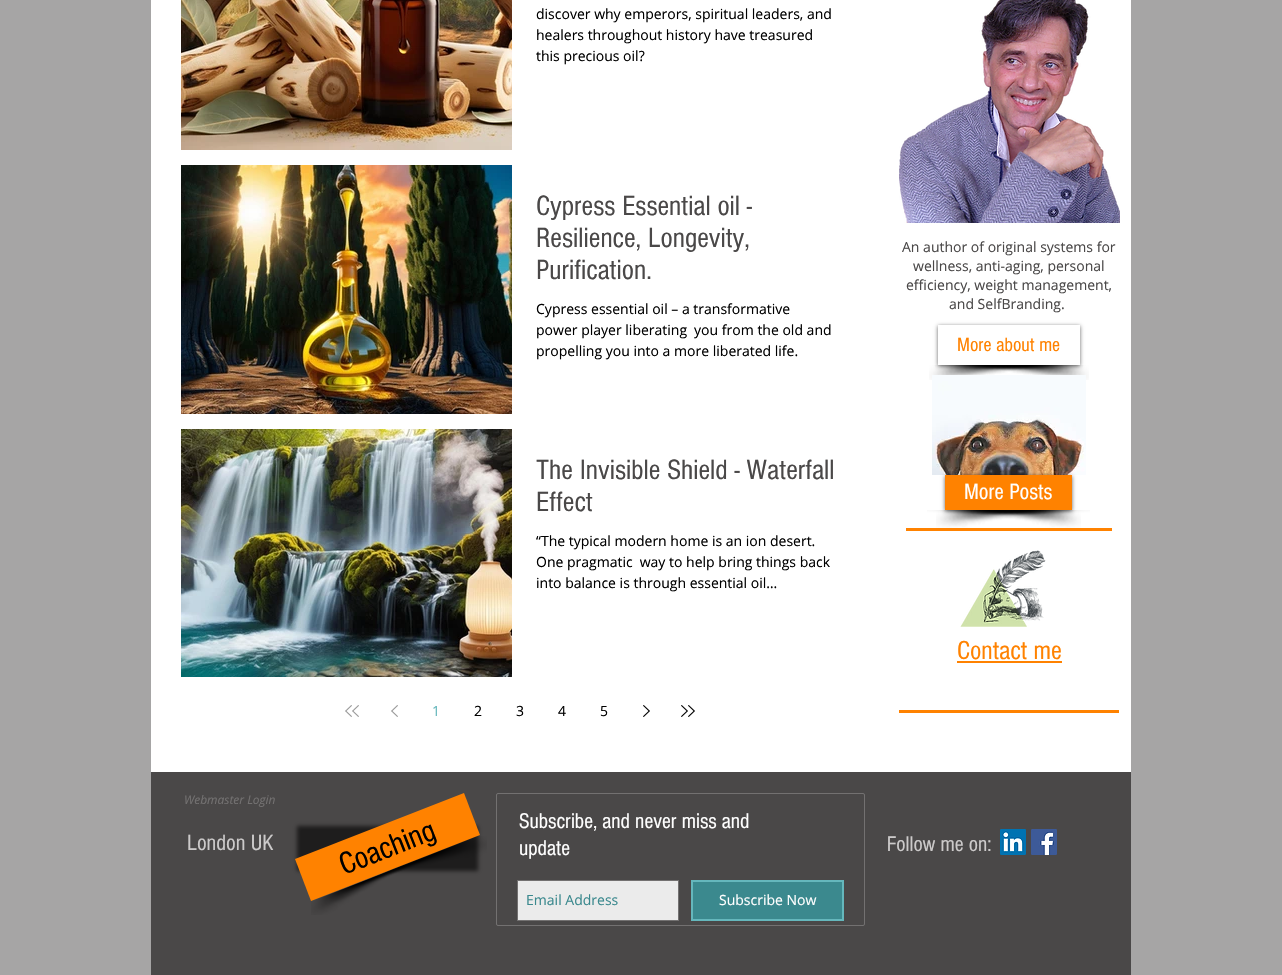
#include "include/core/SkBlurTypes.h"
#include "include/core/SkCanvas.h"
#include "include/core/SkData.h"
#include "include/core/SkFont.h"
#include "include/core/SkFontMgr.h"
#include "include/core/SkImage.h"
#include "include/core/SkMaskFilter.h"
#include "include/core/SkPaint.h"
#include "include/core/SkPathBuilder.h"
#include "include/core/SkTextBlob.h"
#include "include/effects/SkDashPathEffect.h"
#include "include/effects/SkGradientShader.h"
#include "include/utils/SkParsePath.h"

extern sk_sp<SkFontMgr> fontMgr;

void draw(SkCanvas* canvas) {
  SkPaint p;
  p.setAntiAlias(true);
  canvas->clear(SkColorSetRGB(166, 165, 165));
  p.setColor(SK_ColorWHITE);
  canvas->drawRect(SkRect::MakeLTRB(151, 0, 1131, 772), p);
  canvas->drawImageRect(SkImages::DeferredFromEncodedData(SkData::MakeFromFileName("images/1.png")), SkRect::MakeLTRB(181, 0, 512, 150), SkSamplingOptions());
  canvas->drawImageRect(SkImages::DeferredFromEncodedData(SkData::MakeFromFileName("images/2.png")), SkRect::MakeLTRB(181, 165, 512, 414), SkSamplingOptions());
  canvas->drawImageRect(SkImages::DeferredFromEncodedData(SkData::MakeFromFileName("images/3.png")), SkRect::MakeLTRB(181, 429, 512, 677), SkSamplingOptions());
  canvas->drawImageRect(SkImages::DeferredFromEncodedData(SkData::MakeFromFileName("images/4.png")), SkRect::MakeLTRB(345, 705, 352, 717), SkSamplingOptions());
  canvas->drawImageRect(SkImages::DeferredFromEncodedData(SkData::MakeFromFileName("images/4.png")), SkRect::MakeLTRB(352, 705, 359, 717), SkSamplingOptions());
  canvas->drawImageRect(SkImages::DeferredFromEncodedData(SkData::MakeFromFileName("images/4.png")), SkRect::MakeLTRB(391, 705, 398, 717), SkSamplingOptions());
  canvas->drawImageRect(SkImages::DeferredFromEncodedData(SkData::MakeFromFileName("images/5.png")), SkRect::MakeLTRB(643, 705, 650, 717), SkSamplingOptions());
  canvas->drawImageRect(SkImages::DeferredFromEncodedData(SkData::MakeFromFileName("images/5.png")), SkRect::MakeLTRB(681, 705, 688, 717), SkSamplingOptions());
  canvas->drawImageRect(SkImages::DeferredFromEncodedData(SkData::MakeFromFileName("images/5.png")), SkRect::MakeLTRB(688, 705, 695, 717), SkSamplingOptions());
  canvas->drawImageRect(SkImages::DeferredFromEncodedData(SkData::MakeFromFileName("images/6.png")), SkRect::MakeLTRB(899, 0, 1120, 223), SkSamplingOptions());
  canvas->drawImageRect(SkImages::DeferredFromEncodedData(SkData::MakeFromFileName("images/7.png")), SkRect::MakeLTRB(929, 365, 1083, 380), SkSamplingOptions());
  canvas->drawImageRect(SkImages::DeferredFromEncodedData(SkData::MakeFromFileName("images/8.png")), SkRect::MakeLTRB(935, 365, 1089, 380), SkSamplingOptions());
  canvas->save();
  canvas->clipPath(SkPathBuilder(SkPathFillType::kEvenOdd).moveTo(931, 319).lineTo(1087, 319).lineTo(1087, 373).lineTo(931, 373).close().moveTo(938, 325).lineTo(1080, 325).lineTo(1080, 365).lineTo(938, 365).close().detach(), true);
  p.setColor(SkColorSetARGB(153, 0, 0, 0));
  p.setMaskFilter(SkMaskFilter::MakeBlur(kNormal_SkBlurStyle, 2));
  canvas->drawRect(SkRect::MakeLTRB(938, 326, 1080, 366), p);
  p.setMaskFilter(nullptr);
  canvas->restore();
  canvas->drawImageRect(SkImages::DeferredFromEncodedData(SkData::MakeFromFileName("images/9.png")), SkRect::MakeLTRB(932, 375, 1086, 475), SkSamplingOptions());
  canvas->drawImageRect(SkImages::DeferredFromEncodedData(SkData::MakeFromFileName("images/11.png")), SkRect::MakeLTRB(936, 510, 1090, 528), SkSamplingOptions());
  canvas->drawImageRect(SkImages::DeferredFromEncodedData(SkData::MakeFromFileName("images/10.png")), SkRect::MakeLTRB(927, 510, 1081, 528), SkSamplingOptions());
  p.setMaskFilter(SkMaskFilter::MakeBlur(kNormal_SkBlurStyle, 2));
  canvas->drawRect(SkRect::MakeLTRB(945, 476, 1072, 511), p);
  p.setMaskFilter(nullptr);
  p.setColor(SkColorSetRGB(255, 130, 0));
  canvas->drawRect(SkRect::MakeLTRB(945, 475, 1072, 510), p);
  canvas->drawRect(SkRect::MakeLTRB(906, 528, 1112, 531), p);
  canvas->drawImageRect(SkImages::DeferredFromEncodedData(SkData::MakeFromFileName("images/12.png")), SkRect::MakeLTRB(960, 550, 1046, 627), SkSamplingOptions());
  canvas->drawRect(SkRect::MakeLTRB(957, 661, 1062, 663), p);
  canvas->drawRect(SkRect::MakeLTRB(899, 710, 1119, 713), p);
  p.setColor(SkColorSetRGB(74, 72, 72));
  canvas->drawRect(SkRect::MakeLTRB(151, 772, 1131, 975), p);
  canvas->drawImageRect(SkImages::DeferredFromEncodedData(SkData::MakeFromFileName("images/14.png")), SkRect::MakeLTRB(311, 854, 433, 915), SkSamplingOptions());
  canvas->drawImageRect(SkImages::DeferredFromEncodedData(SkData::MakeFromFileName("images/13.png")), SkRect::MakeLTRB(372, 836, 487, 878), SkSamplingOptions());
  p.setColor(SkColorSetARGB(153, 0, 0, 0));
  p.setMaskFilter(SkMaskFilter::MakeBlur(kNormal_SkBlurStyle, 2));
  canvas->drawRect(SkRect::MakeLTRB(297, 826, 478, 871), p);
  p.setMaskFilter(nullptr);
  p.setColor(SkColorSetRGB(255, 130, 0));
  canvas->drawPath(SkPathBuilder().moveTo(295, 859).lineTo(464, 793).lineTo(480, 835).lineTo(311, 901).close().detach(), p);
  p.setStyle(SkPaint::kStroke_Style);
  p.setStrokeWidth(1);
  p.setColor(SkColorSetRGB(115, 113, 113));
  canvas->drawRoundRect(SkRect::MakeLTRB(496.5f, 793.5f, 864.5f, 925.5f), 1.5f, 1.5f, p);
  p.setStyle(SkPaint::kFill_Style);
  p.setColor(SkColorSetRGB(235, 235, 235));
  canvas->drawRect(SkRect::MakeLTRB(517.5f, 880.5f, 678.5f, 920.5f), p);
  p.setStyle(SkPaint::kStroke_Style);
  p.setColor(SkColorSetRGB(115, 113, 113));
  canvas->drawRect(SkRect::MakeLTRB(517.5f, 880.5f, 678.5f, 920.5f), p);
  p.setStyle(SkPaint::kFill_Style);
  p.setColor(SkColorSetRGB(59, 137, 142));
  canvas->drawRect(SkRect::MakeLTRB(692, 881, 843, 920), p);
  p.setStyle(SkPaint::kStroke_Style);
  p.setStrokeWidth(2);
  p.setColor(SkColorSetRGB(101, 183, 188));
  canvas->drawRect(SkRect::MakeLTRB(692, 881, 843, 920), p);
  canvas->drawImageRect(SkImages::DeferredFromEncodedData(SkData::MakeFromFileName("images/15.png")), SkRect::MakeLTRB(1000, 829, 1026, 855), SkSamplingOptions());
  canvas->drawImageRect(SkImages::DeferredFromEncodedData(SkData::MakeFromFileName("images/16.png")), SkRect::MakeLTRB(1031, 829, 1057, 855), SkSamplingOptions());
  SkFont font1(fontMgr->matchFamilyStyle("Open Sans", SkFontStyle::Normal()), 14);
  font1.setSubpixel(true);
  p.setStyle(SkPaint::kFill_Style);
  p.setColor(SK_ColorBLACK);
  canvas->drawString("discover why emperors, spiritual leaders, and", 536, 19, font1, p);
  canvas->drawString("healers throughout history have treasured", 536, 40, font1, p);
  canvas->drawString("this precious oil?", 536, 61, font1, p);
  SkFont font2(fontMgr->matchFamilyStyle("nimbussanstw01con", SkFontStyle::Normal()), 29);
  font2.setSubpixel(true);
  p.setColor(SkColorSetRGB(74, 72, 72));
  canvas->drawString("Cypress Essential oil -", 536, 215, font2, p);
  canvas->drawString("Resilience, Longevity,", 536, 247, font2, p);
  canvas->drawString("Purification.", 536, 279, font2, p);
  p.setColor(SK_ColorBLACK);
  canvas->drawString("Cypress essential oil – a transformative", 536, 314, font1, p);
  canvas->drawString("power player liberating you from the old and", 536, 335, font1, p);
  canvas->drawString("propelling you into a more liberated life.", 536, 356, font1, p);
  p.setColor(SkColorSetRGB(74, 72, 72));
  canvas->drawString("The Invisible Shield - Waterfall", 536, 479, font2, p);
  canvas->drawString("Effect", 536, 511, font2, p);
  p.setColor(SK_ColorBLACK);
  canvas->drawString("“The typical modern home is an ion desert.", 536, 546, font1, p);
  canvas->drawString("One pragmatic way to help bring things back", 536, 567, font1, p);
  canvas->drawString("into balance is through essential oil…", 536, 588, font1, p);
  p.setColor(SkColorSetRGB(101, 183, 188));
  canvas->drawString("1", 432, 716, font1, p);
  p.setColor(SK_ColorBLACK);
  canvas->drawString("2", 474, 716, font1, p);
  canvas->drawString("3", 516, 716, font1, p);
  canvas->drawString("4", 558, 716, font1, p);
  canvas->drawString("5", 600, 716, font1, p);
  p.setColor(SkColorSetRGB(74, 72, 72));
  canvas->drawString("An author of original systems for", 902, 252, font1, p);
  canvas->drawString("wellness, anti-aging, personal", 913, 271, font1, p);
  canvas->drawString("efficiency, weight management,", 906, 290, font1, p);
  canvas->drawString("and SelfBranding.", 949, 309, font1, p);
  SkFont font3(fontMgr->matchFamilyStyle("nimbussanstw01con", SkFontStyle::Normal()), 20);
  font3.setSubpixel(true);
  p.setColor(SkColorSetRGB(255, 130, 0));
  canvas->drawString("More about me", 957, 351, font3, p);
  SkFont font4(fontMgr->matchFamilyStyle("nimbussanstw01con", SkFontStyle::Normal()), 23);
  font4.setSubpixel(true);
  p.setColor(SK_ColorWHITE);
  canvas->drawString("More Posts", 964, 499, font4, p);
  SkFont font5(fontMgr->matchFamilyStyle("nimbussanstw01con", SkFontStyle::Normal()), 27);
  font5.setSubpixel(true);
  p.setColor(SkColorSetRGB(255, 130, 0));
  canvas->drawString("Contact me", 957, 659, font5, p);
  SkFont font6(fontMgr->matchFamilyStyle("Open Sans", SkFontStyle::Italic()), 12);
  font6.setSubpixel(true);
  p.setColor(SkColorSetRGB(115, 113, 113));
  canvas->drawString("Webmaster Login", 184, 804, font6, p);
  p.setColor(SkColorSetRGB(204, 202, 202));
  canvas->drawString("London UK", 187, 850, font4, p);
  SkFont font7(fontMgr->matchFamilyStyle("nimbussanstw01con", SkFontStyle::Normal()), 32);
  font7.setSubpixel(true);
  p.setColor(SK_ColorBLACK);
  canvas->save();
  canvas->rotate(-21.4f, 344, 875);
  canvas->drawString("Coaching", 344, 875, font7, p);
  canvas->restore();
  SkFont font8(fontMgr->matchFamilyStyle("nimbussanstw01con", SkFontStyle::Normal()), 22);
  font8.setSubpixel(true);
  p.setColor(SK_ColorWHITE);
  canvas->drawString("Subscribe, and never miss and", 519, 828, font8, p);
  canvas->drawString("update", 519, 855, font8, p);
  p.setColor(SkColorSetRGB(59, 137, 142));
  canvas->drawString("Email Address", 526, 905, font1, p);
  p.setColor(SK_ColorWHITE);
  canvas->drawString("Subscribe Now", 719, 905, font1, p);
  p.setColor(SkColorSetRGB(204, 202, 202));
  canvas->drawString("Follow me on:", 887, 851, font8, p);
}
